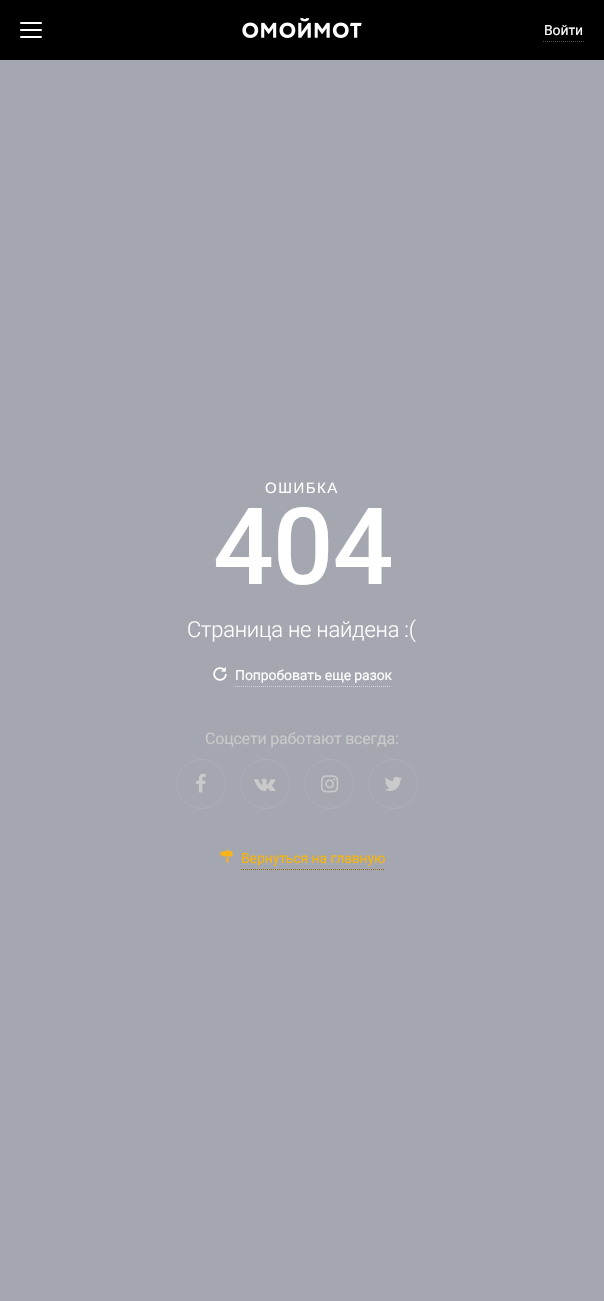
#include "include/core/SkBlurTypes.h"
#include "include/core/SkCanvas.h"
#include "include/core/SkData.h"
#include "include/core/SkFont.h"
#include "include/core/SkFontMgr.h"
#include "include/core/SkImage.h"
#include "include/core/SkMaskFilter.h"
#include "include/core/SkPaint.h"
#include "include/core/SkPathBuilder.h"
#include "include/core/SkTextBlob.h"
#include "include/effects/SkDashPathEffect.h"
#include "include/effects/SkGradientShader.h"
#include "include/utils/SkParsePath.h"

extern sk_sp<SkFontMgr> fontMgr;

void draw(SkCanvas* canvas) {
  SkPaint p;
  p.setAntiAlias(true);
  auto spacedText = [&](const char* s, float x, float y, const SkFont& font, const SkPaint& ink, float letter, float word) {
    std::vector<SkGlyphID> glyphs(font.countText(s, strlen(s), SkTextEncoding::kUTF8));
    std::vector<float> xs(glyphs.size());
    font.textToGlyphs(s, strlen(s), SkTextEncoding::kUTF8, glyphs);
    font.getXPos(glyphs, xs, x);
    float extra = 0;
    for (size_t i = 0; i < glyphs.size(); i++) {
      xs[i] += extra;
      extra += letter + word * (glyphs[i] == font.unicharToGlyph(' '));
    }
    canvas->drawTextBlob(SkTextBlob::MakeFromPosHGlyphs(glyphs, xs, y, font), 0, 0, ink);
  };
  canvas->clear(SkColorSetRGB(164, 166, 176));
  p.setColor(SK_ColorBLACK);
  canvas->drawRect(SkRect::MakeLTRB(0, 0, 604, 60), p);
  p.setColor(SK_ColorWHITE);
  canvas->drawRoundRect(SkRect::MakeLTRB(20, 22, 42, 24), 1, 1, p);
  canvas->drawRoundRect(SkRect::MakeLTRB(20, 29, 42, 31), 1, 1, p);
  canvas->drawRoundRect(SkRect::MakeLTRB(20, 36, 42, 38), 1, 1, p);
  canvas->drawImageRect(SkImages::DeferredFromEncodedData(SkData::MakeFromFileName("images/1.png")), SkRect::MakeLTRB(242, 18, 362, 38), SkSamplingOptions());
  p.setStyle(SkPaint::kStroke_Style);
  p.setStrokeWidth(1);
  p.setColor(SkColorSetRGB(77, 77, 77));
  p.setPathEffect(SkDashPathEffect::Make({{1, 1}}, 0));
  canvas->drawPath(SkPathBuilder().moveTo(543, 41.5f).lineTo(584, 41.5f).detach(), p);
  p.setPathEffect(nullptr);
  canvas->drawImageRect(SkImages::DeferredFromEncodedData(SkData::MakeFromFileName("images/2.png")), SkRect::MakeLTRB(213, 667, 227, 681), SkSamplingOptions());
  p.setColor(SkColorSetRGB(210, 211, 216));
  p.setPathEffect(SkDashPathEffect::Make({{1, 1}}, 0));
  canvas->drawPath(SkPathBuilder().moveTo(235, 686.5f).lineTo(391, 686.5f).detach(), p);
  p.setPathEffect(nullptr);
  p.setColor(SkColorSetRGB(173, 175, 184));
  canvas->drawCircle(201, 784, 24.5f, p);
  canvas->drawImageRect(SkImages::DeferredFromEncodedData(SkData::MakeFromFileName("images/3.png")), SkRect::MakeLTRB(196, 773, 206, 793), SkSamplingOptions());
  canvas->drawCircle(265, 784, 24.5f, p);
  canvas->drawImageRect(SkImages::DeferredFromEncodedData(SkData::MakeFromFileName("images/4.png")), SkRect::MakeLTRB(254, 778, 276, 791), SkSamplingOptions());
  canvas->drawCircle(329, 784, 24.5f, p);
  canvas->drawImageRect(SkImages::DeferredFromEncodedData(SkData::MakeFromFileName("images/5.png")), SkRect::MakeLTRB(321, 775, 339, 793), SkSamplingOptions());
  canvas->drawCircle(393, 784, 24.5f, p);
  canvas->drawImageRect(SkImages::DeferredFromEncodedData(SkData::MakeFromFileName("images/6.png")), SkRect::MakeLTRB(385, 776, 402, 791), SkSamplingOptions());
  canvas->drawImageRect(SkImages::DeferredFromEncodedData(SkData::MakeFromFileName("images/7.png")), SkRect::MakeLTRB(219, 849, 233, 863), SkSamplingOptions());
  p.setColor(SkColorSetRGB(143, 108, 21));
  p.setPathEffect(SkDashPathEffect::Make({{1, 1}}, 0));
  canvas->drawPath(SkPathBuilder().moveTo(241, 869.5f).lineTo(385, 869.5f).detach(), p);
  p.setPathEffect(nullptr);
  SkFont font1(fontMgr->matchFamilyStyle("Roboto", SkFontStyle::Normal()), 14);
  font1.setSubpixel(true);
  p.setStyle(SkPaint::kFill_Style);
  p.setColor(SK_ColorWHITE);
  spacedText("Войти", 544, 35, font1, p, -0.1f, 0);
  SkFont font2(fontMgr->matchFamilyStyle("Liberation Sans", SkFontStyle::Normal()), 15);
  font2.setSubpixel(true);
  spacedText("ОШИБКА", 265, 493, font2, p, 1.5f, 0);
  SkFont font3(fontMgr->matchFamilyStyle("Roboto", SkFontStyle(500, SkFontStyle::kNormal_Width, SkFontStyle::kUpright_Slant)), 107);
  font3.setSubpixel(true);
  spacedText("404", 213, 584, font3, p, -1, 0);
  SkFont font4(fontMgr->matchFamilyStyle("Roboto", SkFontStyle(300, SkFontStyle::kNormal_Width, SkFontStyle::kUpright_Slant)), 22);
  font4.setSubpixel(true);
  spacedText("Страница не найдена :(", 187, 637, font4, p, -0.25f, 0);
  spacedText("Попробовать еще разок", 235, 680, font1, p, -0.1f, 0);
  SkFont font5(fontMgr->matchFamilyStyle("Roboto", SkFontStyle::Normal()), 16);
  font5.setSubpixel(true);
  p.setColor(SkColorSetRGB(202, 202, 202));
  spacedText("Соцсети работают всегда:", 205, 744, font5, p, -0.2f, 0);
  p.setColor(SkColorSetRGB(250, 181, 9));
  spacedText("Вернуться на главную", 241, 863, font1, p, -0.1f, 0);
}
